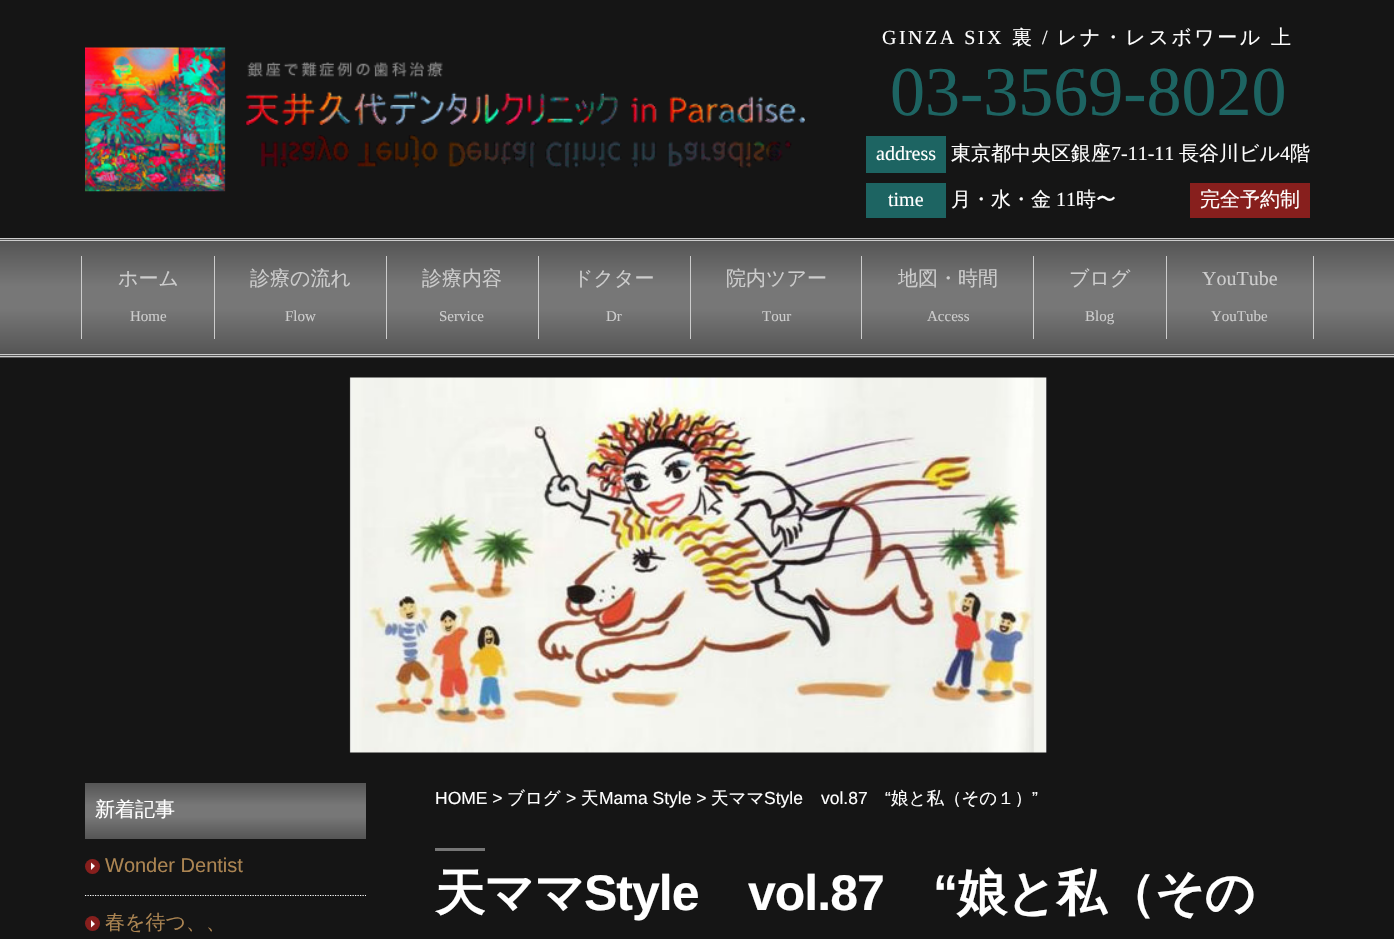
#include "include/core/SkBlurTypes.h"
#include "include/core/SkCanvas.h"
#include "include/core/SkData.h"
#include "include/core/SkFont.h"
#include "include/core/SkFontMgr.h"
#include "include/core/SkImage.h"
#include "include/core/SkMaskFilter.h"
#include "include/core/SkPaint.h"
#include "include/core/SkPathBuilder.h"
#include "include/core/SkTextBlob.h"
#include "include/effects/SkDashPathEffect.h"
#include "include/effects/SkGradientShader.h"
#include "include/utils/SkParsePath.h"

extern sk_sp<SkFontMgr> fontMgr;

void draw(SkCanvas* canvas) {
  SkPaint p;
  p.setAntiAlias(true);
  auto spacedText = [&](const char* s, float x, float y, const SkFont& font, const SkPaint& ink, float letter, float word) {
    std::vector<SkGlyphID> glyphs(font.countText(s, strlen(s), SkTextEncoding::kUTF8));
    std::vector<float> xs(glyphs.size());
    font.textToGlyphs(s, strlen(s), SkTextEncoding::kUTF8, glyphs);
    font.getXPos(glyphs, xs, x);
    float extra = 0;
    for (size_t i = 0; i < glyphs.size(); i++) {
      xs[i] += extra;
      extra += letter + word * (glyphs[i] == font.unicharToGlyph(' '));
    }
    canvas->drawTextBlob(SkTextBlob::MakeFromPosHGlyphs(glyphs, xs, y, font), 0, 0, ink);
  };
  canvas->clear(SkColorSetRGB(21, 21, 21));
  canvas->drawImageRect(SkImages::DeferredFromEncodedData(SkData::MakeFromFileName("images/1.png")), SkRect::MakeLTRB(85, 47, 805, 192), SkSamplingOptions());
  p.setColor(SkColorSetRGB(29, 100, 98));
  canvas->drawRect(SkRect::MakeLTRB(866, 136, 946, 173), p);
  canvas->drawRect(SkRect::MakeLTRB(866, 183, 946, 218), p);
  p.setColor(SkColorSetRGB(135, 31, 29));
  canvas->drawRect(SkRect::MakeLTRB(1190, 183, 1310, 218), p);
  {
    const SkColor colors[] = {SkColorSetRGB(85, 85, 85), SkColorSetRGB(119, 119, 119), SkColorSetRGB(119, 119, 119), SkColorSetRGB(85, 85, 85)};
    const float stops[] = {0, 0.4f, 0.6f, 1};
    const SkPoint ends[] = {{698, 129}, {698, 241}};
    p.setShader(SkGradientShader::MakeLinear(ends, colors, stops, 4, SkTileMode::kClamp));
    p.setAlpha(255);
  }
  canvas->drawRect(SkRect::MakeLTRB(0, 239, 1394, 240), p);
  {
    const SkColor colors[] = {SkColorSetRGB(85, 85, 85), SkColorSetRGB(119, 119, 119), SkColorSetRGB(119, 119, 119), SkColorSetRGB(85, 85, 85)};
    const float stops[] = {0, 0.4f, 0.6f, 1};
    const SkPoint ends[] = {{698, 241}, {698, 354}};
    p.setShader(SkGradientShader::MakeLinear(ends, colors, stops, 4, SkTileMode::kClamp));
    p.setAlpha(255);
  }
  canvas->drawRect(SkRect::MakeLTRB(0, 241, 1394, 354), p);
  {
    const SkColor colors[] = {SkColorSetRGB(85, 85, 85), SkColorSetRGB(119, 119, 119), SkColorSetRGB(119, 119, 119), SkColorSetRGB(85, 85, 85)};
    const float stops[] = {0, 0.4f, 0.6f, 1};
    const SkPoint ends[] = {{698, 354}, {698, 466}};
    p.setShader(SkGradientShader::MakeLinear(ends, colors, stops, 4, SkTileMode::kClamp));
    p.setAlpha(255);
  }
  canvas->drawRect(SkRect::MakeLTRB(0, 355, 1394, 358), p);
  p.setShader(nullptr);
  p.setColor(SkColorSetRGB(204, 204, 204));
  canvas->drawRect(SkRect::MakeLTRB(0, 238, 1394, 239), p);
  canvas->drawRect(SkRect::MakeLTRB(0, 240, 1394, 241), p);
  canvas->drawRect(SkRect::MakeLTRB(0, 354, 1394, 355), p);
  canvas->drawRect(SkRect::MakeLTRB(0, 356, 1394, 357), p);
  canvas->drawRect(SkRect::MakeLTRB(81, 256, 82, 339), p);
  canvas->drawRect(SkRect::MakeLTRB(214, 256, 215, 339), p);
  canvas->drawRect(SkRect::MakeLTRB(386, 256, 387, 339), p);
  canvas->drawRect(SkRect::MakeLTRB(538, 256, 539, 339), p);
  canvas->drawRect(SkRect::MakeLTRB(690, 256, 691, 339), p);
  canvas->drawRect(SkRect::MakeLTRB(861, 256, 862, 339), p);
  canvas->drawRect(SkRect::MakeLTRB(1033, 256, 1034, 339), p);
  canvas->drawRect(SkRect::MakeLTRB(1313, 256, 1314, 339), p);
  canvas->drawRect(SkRect::MakeLTRB(1166, 256, 1167, 339), p);
  canvas->drawImageRect(SkImages::DeferredFromEncodedData(SkData::MakeFromFileName("images/2.png")), SkRect::MakeLTRB(349, 377, 1047, 753), SkSamplingOptions());
  {
    const SkColor colors[] = {SkColorSetRGB(85, 85, 85), SkColorSetRGB(119, 119, 119), SkColorSetRGB(119, 119, 119), SkColorSetRGB(85, 85, 85)};
    const float stops[] = {0, 0.4f, 0.6f, 1};
    const SkPoint ends[] = {{226, 783}, {226, 839}};
    p.setShader(SkGradientShader::MakeLinear(ends, colors, stops, 4, SkTileMode::kClamp));
    p.setAlpha(255);
  }
  canvas->drawRect(SkRect::MakeLTRB(85, 783, 366, 839), p);
  p.setStyle(SkPaint::kStroke_Style);
  p.setStrokeWidth(1.2f);
  p.setShader(nullptr);
  p.setColor(SK_ColorWHITE);
  p.setPathEffect(SkDashPathEffect::Make({{1.25f, 1.25f}}, 0));
  canvas->drawPath(SkPathBuilder().moveTo(85, 895.5f).lineTo(366, 895.5f).detach(), p);
  p.setPathEffect(nullptr);
  p.setStyle(SkPaint::kFill_Style);
  p.setColor(SkColorSetRGB(135, 31, 29));
  canvas->drawCircle(92.5f, 866.5f, 7.5f, p);
  p.setColor(SK_ColorWHITE);
  canvas->drawPath(SkPathBuilder().moveTo(91, 870).lineTo(91, 862.5f).lineTo(95, 866).close().detach(), p);
  p.setColor(SkColorSetRGB(135, 31, 29));
  canvas->drawCircle(92.5f, 923.5f, 7.5f, p);
  p.setColor(SK_ColorWHITE);
  canvas->drawPath(SkPathBuilder().moveTo(91, 927.5f).lineTo(91, 920).lineTo(95, 924).close().detach(), p);
  p.setColor(SkColorSetRGB(118, 118, 118));
  canvas->drawRect(SkRect::MakeLTRB(435, 848, 485, 851), p);
  SkFont font1(fontMgr->matchFamilyStyle("Liberation Serif", SkFontStyle::Normal()), 20);
  font1.setSubpixel(true);
  p.setColor(SK_ColorWHITE);
  spacedText("GINZA SIX", 882, 44, font1, p, 2.5f, 0);
  SkFont font2(fontMgr->matchFamilyStyle("WenQuanYi Zen Hei", SkFontStyle(500, SkFontStyle::kNormal_Width, SkFontStyle::kUpright_Slant)), 20);
  font2.setSubpixel(true);
  spacedText("裏", 1012, 44, font2, p, 2.5f, 0);
  spacedText("/", 1042, 44, font1, p, 2.5f, 0);
  spacedText("レナ・レスボワール", 1057, 44, font2, p, 2.5f, 0);
  spacedText("上", 1271, 44, font2, p, 2.5f, 0);
  SkFont font3(fontMgr->matchFamilyStyle("Liberation Serif", SkFontStyle::Normal()), 70);
  font3.setSubpixel(true);
  p.setColor(SkColorSetRGB(29, 100, 98));
  canvas->drawString("03-3569-8020", 890, 115, font3, p);
  p.setColor(SK_ColorWHITE);
  canvas->drawString("address", 876, 160, font1, p);
  canvas->drawString("東京都中央区銀座", 951, 160, font2, p);
  canvas->drawString("7-11-11", 1111, 160, font1, p);
  canvas->drawString("長谷川ビル", 1179, 160, font2, p);
  canvas->drawString("4", 1280, 160, font1, p);
  canvas->drawString("階", 1290, 160, font2, p);
  canvas->drawString("time", 888, 206, font1, p);
  canvas->drawString("月・水・金", 951, 206, font2, p);
  canvas->drawString("11", 1056, 206, font1, p);
  canvas->drawString("時〜", 1076, 206, font2, p);
  canvas->drawString("完全予約制", 1200, 206, font2, p);
  p.setColor(SkColorSetRGB(204, 204, 204));
  canvas->drawString("ホーム", 118, 285, font2, p);
  SkFont font4(fontMgr->matchFamilyStyle("Liberation Serif", SkFontStyle::Normal()), 15);
  font4.setSubpixel(true);
  canvas->drawString("Home", 130, 321, font4, p);
  canvas->drawString("診療の流れ", 250, 285, font2, p);
  canvas->drawString("Flow", 285, 321, font4, p);
  canvas->drawString("診療内容", 422, 285, font2, p);
  canvas->drawString("Service", 439, 321, font4, p);
  canvas->drawString("ドクター", 573, 285, font2, p);
  canvas->drawString("Dr", 606, 321, font4, p);
  canvas->drawString("院内ツアー", 726, 285, font2, p);
  canvas->drawString("Tour", 762, 321, font4, p);
  canvas->drawString("地図・時間", 898, 285, font2, p);
  canvas->drawString("Access", 927, 321, font4, p);
  canvas->drawString("ブログ", 1069, 285, font2, p);
  canvas->drawString("Blog", 1085, 321, font4, p);
  canvas->drawString("YouTube", 1202, 285, font1, p);
  canvas->drawString("YouTube", 1211, 321, font4, p);
  p.setColor(SK_ColorWHITE);
  canvas->drawString("新着記事", 95, 816, font2, p);
  SkFont font5(fontMgr->matchFamilyStyle("Liberation Sans", SkFontStyle::Normal()), 20);
  font5.setSubpixel(true);
  p.setColor(SkColorSetRGB(172, 133, 82));
  canvas->drawString("Wonder Dentist", 105, 872, font5, p);
  canvas->drawString("春を待つ、、", 105, 929, font2, p);
  SkFont font6(fontMgr->matchFamilyStyle("Liberation Sans", SkFontStyle::Normal()), 17.5f);
  font6.setSubpixel(true);
  p.setColor(SK_ColorWHITE);
  canvas->drawString("HOME >", 435, 804, font6, p);
  SkFont font7(fontMgr->matchFamilyStyle("WenQuanYi Zen Hei", SkFontStyle(500, SkFontStyle::kNormal_Width, SkFontStyle::kUpright_Slant)), 17.5f);
  font7.setSubpixel(true);
  canvas->drawString("ブログ", 507, 804, font7, p);
  canvas->drawString(">", 566, 804, font6, p);
  canvas->drawString("天", 581, 804, font7, p);
  canvas->drawString("Mama Style >", 599, 804, font6, p);
  canvas->drawString("天ママ", 711, 804, font7, p);
  canvas->drawString("Style", 764, 804, font6, p);
  canvas->drawString("vol.87", 821, 804, font6, p);
  canvas->drawString("“", 885, 804, font6, p);
  canvas->drawString("娘と私（その１）", 891, 804, font7, p);
  canvas->drawString("”", 1032, 804, font6, p);
  SkFont font8(fontMgr->matchFamilyStyle("WenQuanYi Zen Hei", SkFontStyle::Bold()), 50);
  font8.setSubpixel(true);
  spacedText("天ママ", 435, 910, font8, p, -1, 0);
  SkFont font9(fontMgr->matchFamilyStyle("Liberation Sans", SkFontStyle::Bold()), 50);
  font9.setSubpixel(true);
  spacedText("Style", 584, 910, font9, p, -1, 0);
  spacedText("vol.87", 748, 910, font9, p, -1, 0);
  spacedText("“", 933, 910, font9, p, -1, 0);
  spacedText("娘と私（その", 957, 910, font8, p, -1, 0);
}
